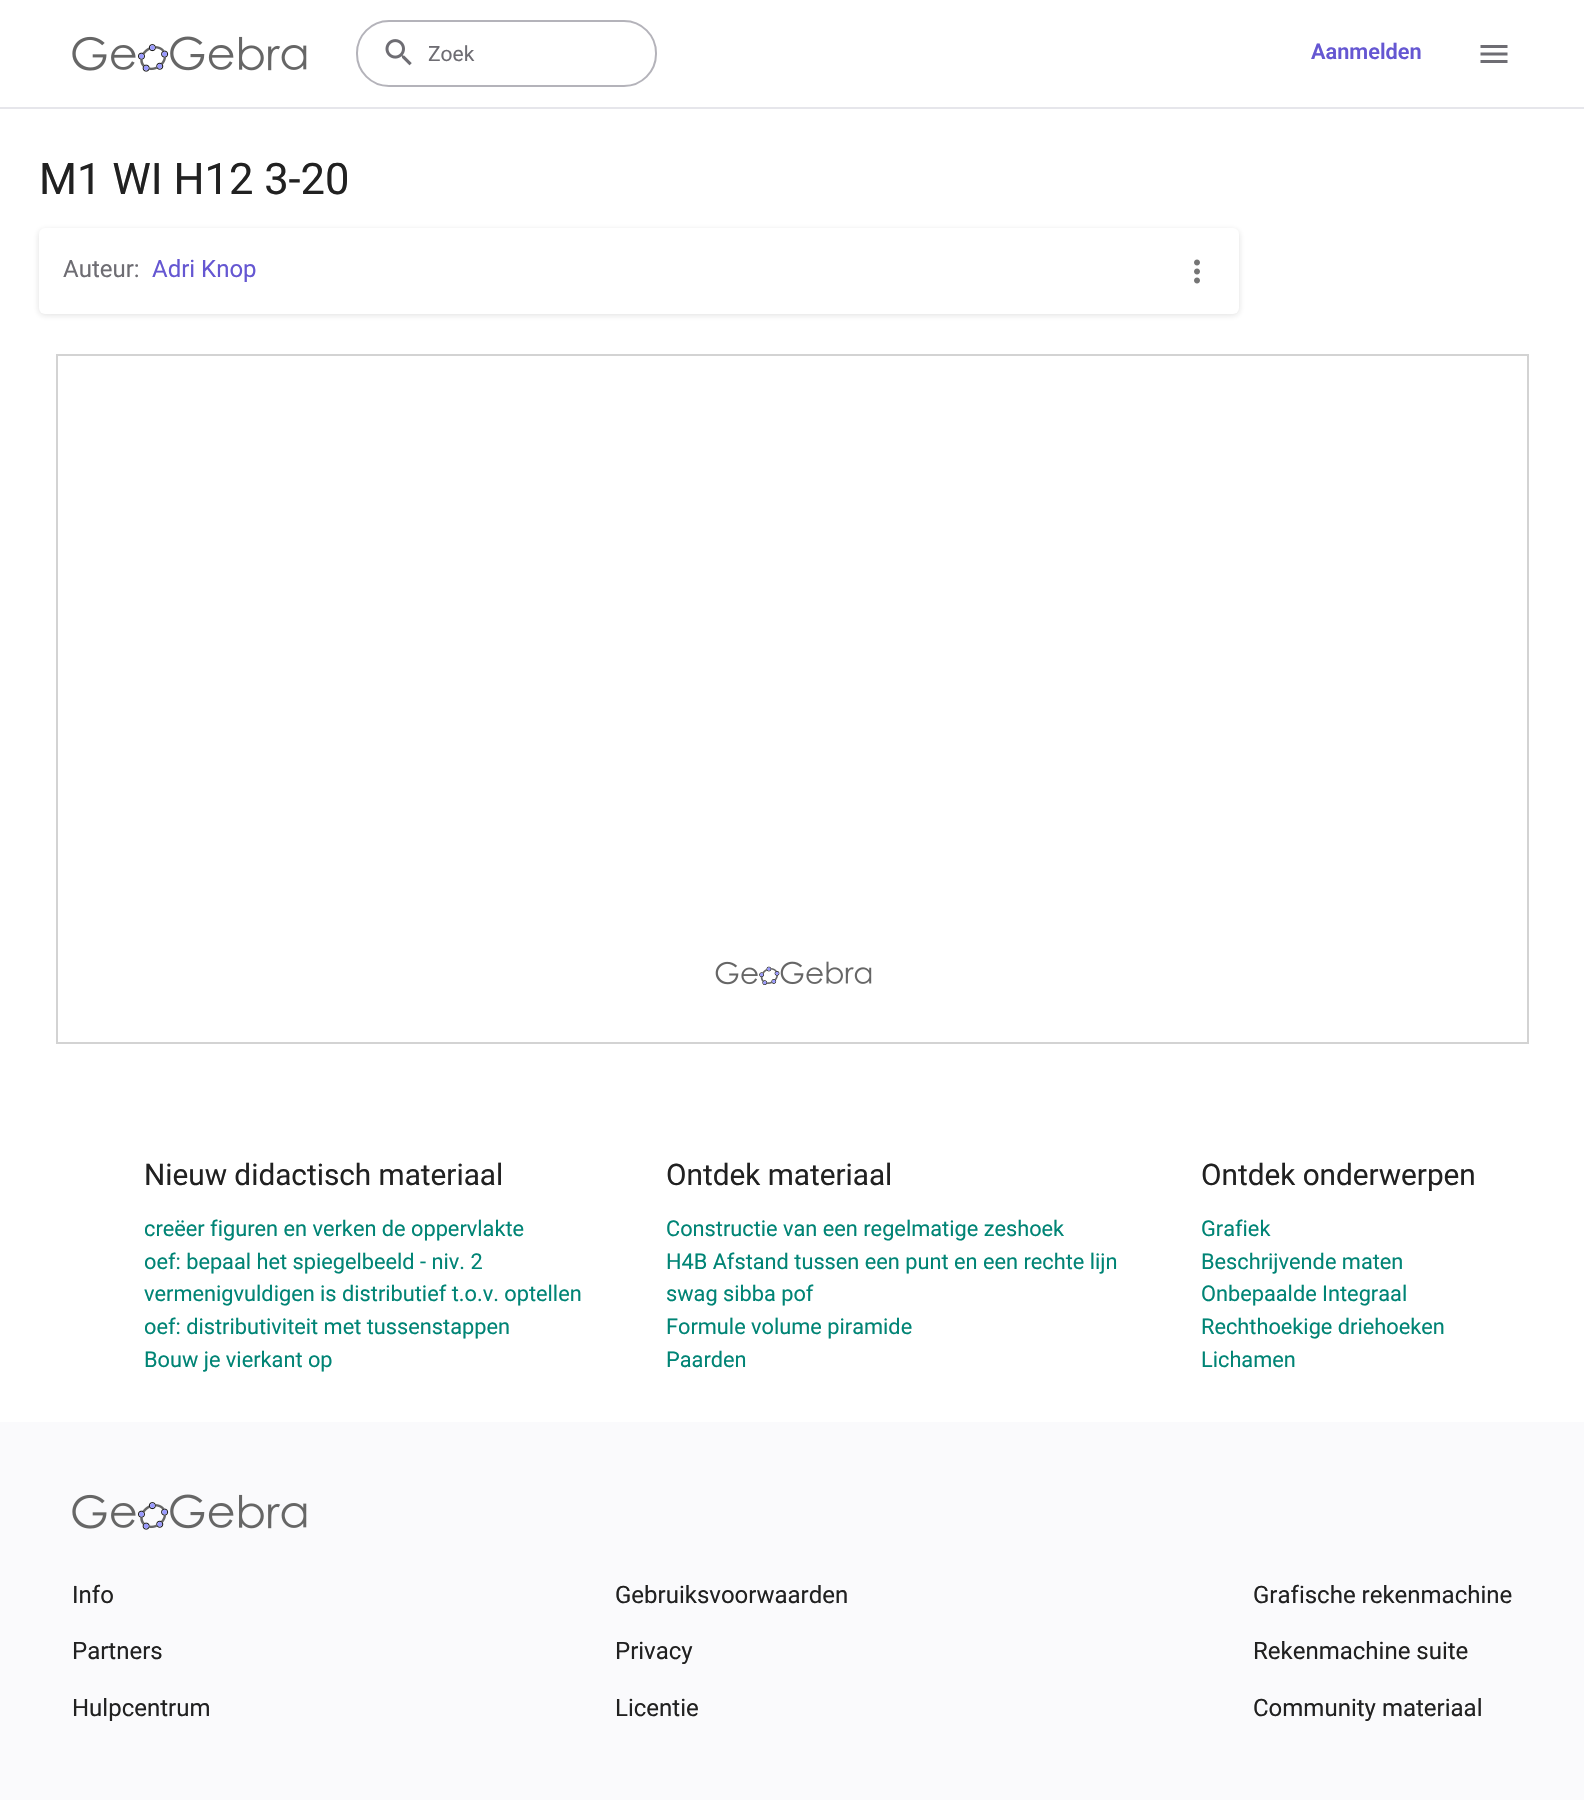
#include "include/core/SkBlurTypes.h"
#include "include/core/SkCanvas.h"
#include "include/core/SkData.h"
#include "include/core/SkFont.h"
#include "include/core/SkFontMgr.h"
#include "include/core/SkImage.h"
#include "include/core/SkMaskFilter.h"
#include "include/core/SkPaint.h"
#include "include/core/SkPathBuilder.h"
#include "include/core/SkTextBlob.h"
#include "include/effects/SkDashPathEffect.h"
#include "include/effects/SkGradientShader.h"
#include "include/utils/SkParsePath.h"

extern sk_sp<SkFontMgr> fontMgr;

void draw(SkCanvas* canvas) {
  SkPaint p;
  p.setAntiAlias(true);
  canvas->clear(SK_ColorWHITE);
  p.setColor(SkColorSetRGB(230, 230, 235));
  canvas->drawRect(SkRect::MakeLTRB(0, 107, 1584, 109), p);
  canvas->drawImageRect(SkImages::DeferredFromEncodedData(SkData::MakeFromFileName("images/1.png")), SkRect::MakeLTRB(72, 36, 307, 72), SkSamplingOptions());
  p.setStyle(SkPaint::kStroke_Style);
  p.setStrokeWidth(2);
  p.setColor(SkColorSetRGB(180, 179, 186));
  canvas->drawRoundRect(SkRect::MakeLTRB(357, 21, 656, 86), 32, 32, p);
  canvas->drawImageRect(SkImages::DeferredFromEncodedData(SkData::MakeFromFileName("images/2.png")), SkRect::MakeLTRB(385, 39, 412, 66), SkSamplingOptions());
  canvas->drawImageRect(SkImages::DeferredFromEncodedData(SkData::MakeFromFileName("images/3.png")), SkRect::MakeLTRB(1480, 45, 1508, 63), SkSamplingOptions());
  p.setStyle(SkPaint::kFill_Style);
  p.setColor(SkColorSetARGB(36, 28, 28, 31));
  p.setMaskFilter(SkMaskFilter::MakeBlur(kNormal_SkBlurStyle, 3));
  canvas->drawRoundRect(SkRect::MakeLTRB(39, 230, 1239, 315), 6, 6, p);
  p.setMaskFilter(nullptr);
  p.setColor(SK_ColorWHITE);
  canvas->drawRoundRect(SkRect::MakeLTRB(39, 228, 1239, 314), 6, 6, p);
  canvas->drawImageRect(SkImages::DeferredFromEncodedData(SkData::MakeFromFileName("images/4.png")), SkRect::MakeLTRB(1194, 259, 1200, 284), SkSamplingOptions());
  canvas->drawImageRect(SkImages::DeferredFromEncodedData(SkData::MakeFromFileName("images/5.png")), SkRect::MakeLTRB(715, 961, 872, 985), SkSamplingOptions());
  p.setStyle(SkPaint::kStroke_Style);
  p.setColor(SkColorSetRGB(211, 211, 211));
  canvas->drawRect(SkRect::MakeLTRB(57, 355, 1528, 1043), p);
  p.setStyle(SkPaint::kFill_Style);
  p.setColor(SkColorSetRGB(250, 250, 252));
  canvas->drawRect(SkRect::MakeLTRB(0, 1422, 1584, 1800), p);
  canvas->drawImageRect(SkImages::DeferredFromEncodedData(SkData::MakeFromFileName("images/6.png")), SkRect::MakeLTRB(72, 1494, 307, 1530), SkSamplingOptions());
  SkFont font1(fontMgr->matchFamilyStyle("Roboto", SkFontStyle::Normal()), 21);
  font1.setSubpixel(true);
  p.setColor(SkColorSetRGB(110, 109, 115));
  canvas->drawString("Zoek", 428, 61, font1, p);
  SkFont font2(fontMgr->matchFamilyStyle("Roboto", SkFontStyle(600, SkFontStyle::kNormal_Width, SkFontStyle::kUpright_Slant)), 21.75f);
  font2.setSubpixel(true);
  p.setColor(SkColorSetRGB(101, 87, 210));
  canvas->drawString("Aanmelden", 1311, 59, font2, p);
  SkFont font3(fontMgr->matchFamilyStyle("Roboto", SkFontStyle::Normal()), 43.5f);
  font3.setSubpixel(true);
  p.setColor(SkColorSetRGB(33, 33, 33));
  canvas->drawString("M1 WI H12 3-20", 39, 194, font3, p);
  SkFont font4(fontMgr->matchFamilyStyle("Roboto", SkFontStyle::Normal()), 24);
  font4.setSubpixel(true);
  p.setColor(SkColorSetRGB(110, 109, 115));
  canvas->drawString("Auteur:", 63, 277, font4, p);
  p.setColor(SkColorSetRGB(101, 87, 210));
  canvas->drawString("Adri Knop", 152, 277, font4, p);
  SkFont font5(fontMgr->matchFamilyStyle("Roboto", SkFontStyle::Normal()), 29.75f);
  font5.setSubpixel(true);
  p.setColor(SkColorSetRGB(33, 33, 33));
  canvas->drawString("Nieuw didactisch materiaal", 144, 1185, font5, p);
  SkFont font6(fontMgr->matchFamilyStyle("Roboto", SkFontStyle::Normal()), 21.75f);
  font6.setSubpixel(true);
  p.setColor(SkColorSetRGB(0, 132, 117));
  canvas->drawString("creëer figuren en verken de oppervlakte", 144, 1236, font6, p);
  canvas->drawString("oef: bepaal het spiegelbeeld - niv. 2", 144, 1269, font6, p);
  canvas->drawString("vermenigvuldigen is distributief t.o.v. optellen", 144, 1301, font6, p);
  canvas->drawString("oef: distributiviteit met tussenstappen", 144, 1334, font6, p);
  canvas->drawString("Bouw je vierkant op", 144, 1367, font6, p);
  p.setColor(SkColorSetRGB(33, 33, 33));
  canvas->drawString("Ontdek materiaal", 666, 1185, font5, p);
  p.setColor(SkColorSetRGB(0, 132, 117));
  canvas->drawString("Constructie van een regelmatige zeshoek", 666, 1236, font6, p);
  canvas->drawString("H4B Afstand tussen een punt en een rechte lijn", 666, 1269, font6, p);
  canvas->drawString("swag sibba pof", 666, 1301, font6, p);
  canvas->drawString("Formule volume piramide", 666, 1334, font6, p);
  canvas->drawString("Paarden", 666, 1367, font6, p);
  p.setColor(SkColorSetRGB(33, 33, 33));
  canvas->drawString("Ontdek onderwerpen", 1201, 1185, font5, p);
  p.setColor(SkColorSetRGB(0, 132, 117));
  canvas->drawString("Grafiek", 1201, 1236, font6, p);
  canvas->drawString("Beschrijvende maten", 1201, 1269, font6, p);
  canvas->drawString("Onbepaalde Integraal", 1201, 1301, font6, p);
  canvas->drawString("Rechthoekige driehoeken", 1201, 1334, font6, p);
  canvas->drawString("Lichamen", 1201, 1367, font6, p);
  p.setColor(SkColorSetRGB(33, 33, 33));
  canvas->drawString("Info", 72, 1603, font4, p);
  canvas->drawString("Partners", 72, 1659, font4, p);
  canvas->drawString("Hulpcentrum", 72, 1716, font4, p);
  canvas->drawString("Gebruiksvoorwaarden", 615, 1603, font4, p);
  canvas->drawString("Privacy", 615, 1659, font4, p);
  canvas->drawString("Licentie", 615, 1716, font4, p);
  canvas->drawString("Grafische rekenmachine", 1253, 1603, font4, p);
  canvas->drawString("Rekenmachine suite", 1253, 1659, font4, p);
  canvas->drawString("Community materiaal", 1253, 1716, font4, p);
}
